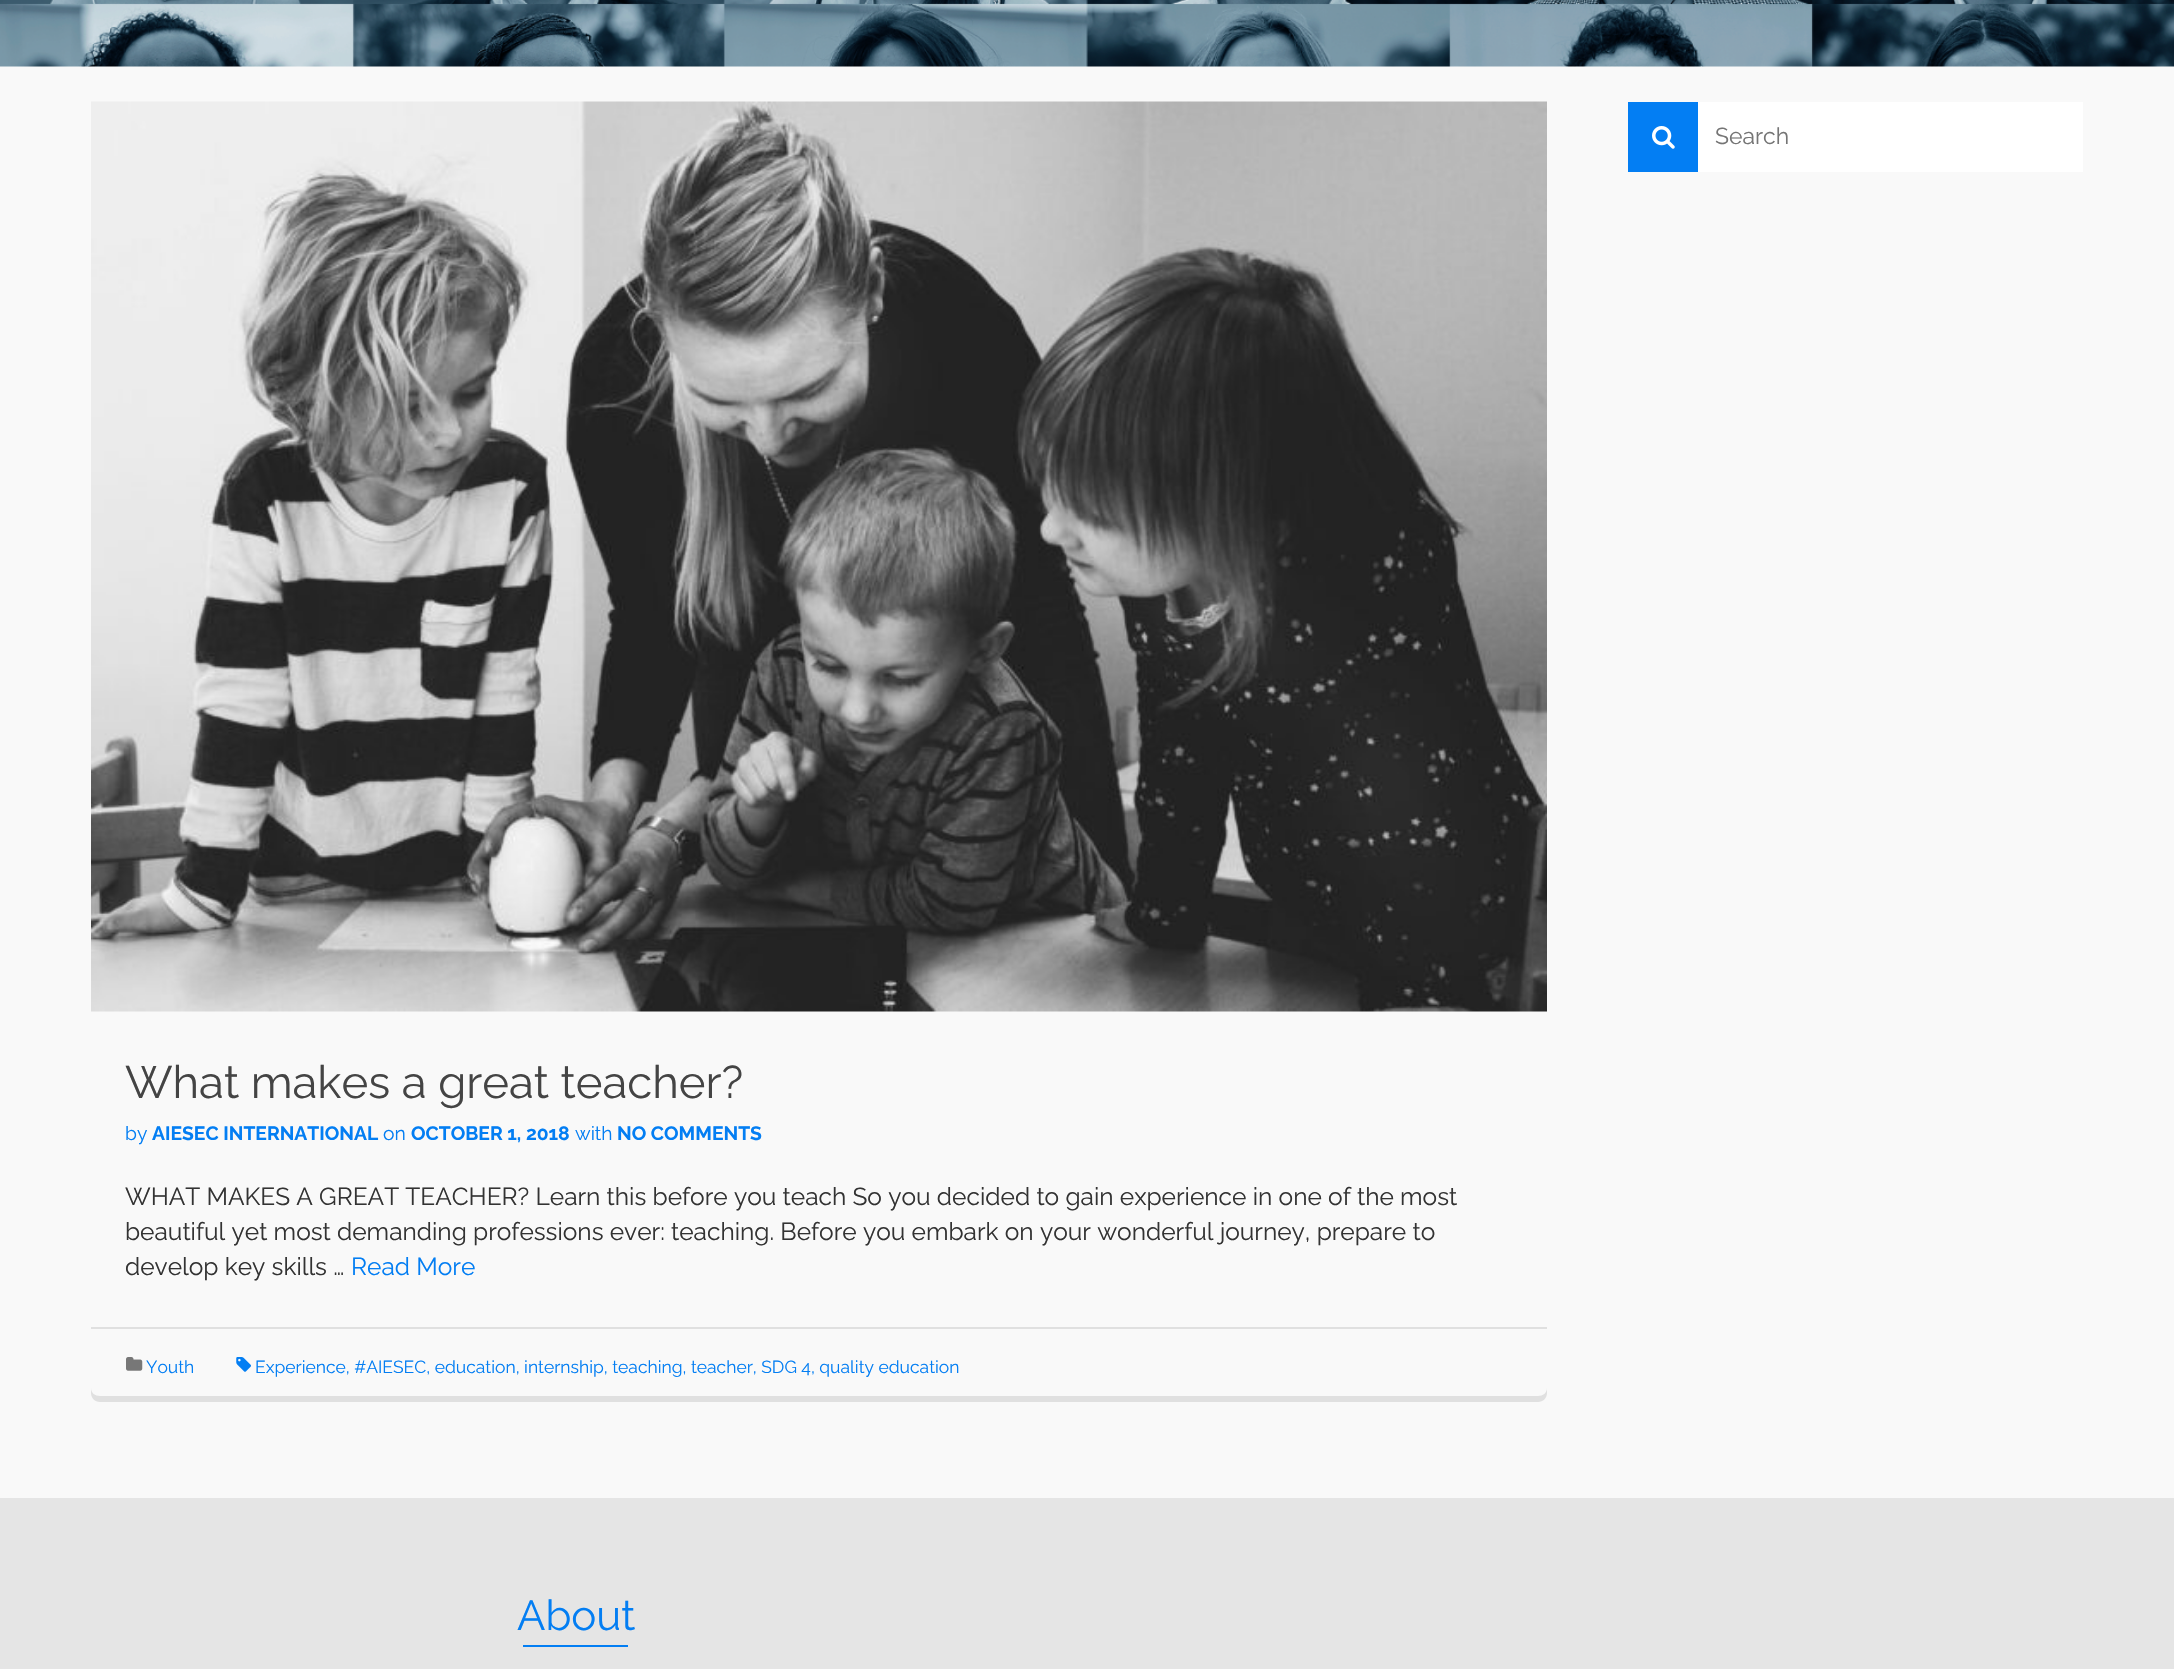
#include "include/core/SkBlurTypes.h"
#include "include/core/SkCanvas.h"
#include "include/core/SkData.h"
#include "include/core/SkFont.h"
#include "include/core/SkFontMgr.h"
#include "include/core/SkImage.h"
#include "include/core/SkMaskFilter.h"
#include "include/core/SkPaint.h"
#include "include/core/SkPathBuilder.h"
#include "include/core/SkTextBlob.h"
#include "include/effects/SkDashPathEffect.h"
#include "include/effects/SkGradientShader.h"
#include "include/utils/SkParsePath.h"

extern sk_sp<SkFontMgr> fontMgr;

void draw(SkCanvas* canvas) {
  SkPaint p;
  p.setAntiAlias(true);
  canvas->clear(SkColorSetRGB(249, 249, 249));
  canvas->drawImageRect(SkImages::DeferredFromEncodedData(SkData::MakeFromFileName("images/1.png")), SkRect::MakeLTRB(0, 0, 2174, 67), SkSamplingOptions());
  p.setColor(SkColorSetRGB(3, 126, 243));
  canvas->drawRect(SkRect::MakeLTRB(1628, 102, 1698, 172), p);
  canvas->drawImageRect(SkImages::DeferredFromEncodedData(SkData::MakeFromFileName("images/2.png")), SkRect::MakeLTRB(1652, 126, 1675, 149), SkSamplingOptions());
  p.setColor(SK_ColorWHITE);
  canvas->drawRect(SkRect::MakeLTRB(1698, 102, 2083, 172), p);
  canvas->drawImageRect(SkImages::DeferredFromEncodedData(SkData::MakeFromFileName("images/3.png")), SkRect::MakeLTRB(91, 101, 1547, 1012), SkSamplingOptions());
  p.setColor(SkColorSetRGB(224, 224, 224));
  canvas->drawPath(SkPathBuilder().moveTo(91, 1388).lineTo(91, 1393).cubicTo(91, 1398, 95, 1402, 100, 1402).lineTo(1538, 1402).cubicTo(1543, 1402, 1547, 1398, 1547, 1393).lineTo(1547, 1388).cubicTo(1547, 1393, 1543, 1396, 1538, 1396).lineTo(100, 1396).cubicTo(95, 1396, 91, 1393, 91, 1388).close().detach(), p);
  canvas->drawRect(SkRect::MakeLTRB(91, 1327, 1547, 1329), p);
  canvas->drawImageRect(SkImages::DeferredFromEncodedData(SkData::MakeFromFileName("images/4.png")), SkRect::MakeLTRB(126, 1357, 143, 1371), SkSamplingOptions());
  canvas->drawImageRect(SkImages::DeferredFromEncodedData(SkData::MakeFromFileName("images/5.png")), SkRect::MakeLTRB(236, 1357, 251, 1372), SkSamplingOptions());
  p.setColor(SkColorSetRGB(229, 229, 229));
  canvas->drawRect(SkRect::MakeLTRB(0, 1498, 2174, 1669), p);
  p.setColor(SkColorSetRGB(3, 126, 243));
  canvas->drawRect(SkRect::MakeLTRB(523, 1645, 628, 1647), p);
  SkFont font1(fontMgr->matchFamilyStyle("Raleway", SkFontStyle::Normal()), 23);
  font1.setSubpixel(true);
  p.setColor(SkColorSetRGB(117, 117, 117));
  canvas->drawString("Search", 1715, 144, font1, p);
  SkFont font2(fontMgr->matchFamilyStyle("Raleway", SkFontStyle::Normal()), 45.5f);
  font2.setSubpixel(true);
  p.setColor(SkColorSetRGB(68, 68, 68));
  canvas->drawString("What makes a great teacher?", 125, 1098, font2, p);
  SkFont font3(fontMgr->matchFamilyStyle("Raleway", SkFontStyle::Normal()), 19.25f);
  font3.setSubpixel(true);
  p.setColor(SkColorSetRGB(3, 126, 243));
  canvas->drawString("by", 125, 1140, font3, p);
  SkFont font4(fontMgr->matchFamilyStyle("Raleway", SkFontStyle::Bold()), 19.25f);
  font4.setSubpixel(true);
  canvas->drawString("AIESEC INTERNATIONAL", 152, 1140, font4, p);
  canvas->drawString("on", 383, 1140, font3, p);
  canvas->drawString("OCTOBER 1, 2018", 411, 1140, font4, p);
  canvas->drawString("with", 575, 1140, font3, p);
  canvas->drawString("NO COMMENTS", 617, 1140, font4, p);
  SkFont font5(fontMgr->matchFamilyStyle("Raleway", SkFontStyle::Normal()), 24.5f);
  font5.setSubpixel(true);
  p.setColor(SkColorSetRGB(51, 51, 51));
  canvas->drawString("WHAT MAKES A GREAT TEACHER? Learn this before you teach So you decided to gain experience in one of the most", 125, 1205, font5, p);
  canvas->drawString("beautiful yet most demanding professions ever: teaching. Before you embark on your wonderful journey, prepare to", 125, 1240, font5, p);
  canvas->drawString("develop key skills …", 125, 1275, font5, p);
  p.setColor(SkColorSetRGB(3, 126, 243));
  canvas->drawString("Read More", 351, 1275, font5, p);
  SkFont font6(fontMgr->matchFamilyStyle("Raleway", SkFontStyle::Normal()), 17.5f);
  font6.setSubpixel(true);
  canvas->drawString("Youth", 146, 1373, font6, p);
  canvas->drawString("Experience, #AIESEC, education, internship, teaching, teacher, SDG 4, quality education", 255, 1373, font6, p);
  SkFont font7(fontMgr->matchFamilyStyle("Raleway", SkFontStyle::Normal()), 42);
  font7.setSubpixel(true);
  canvas->drawString("About", 517, 1630, font7, p);
}
